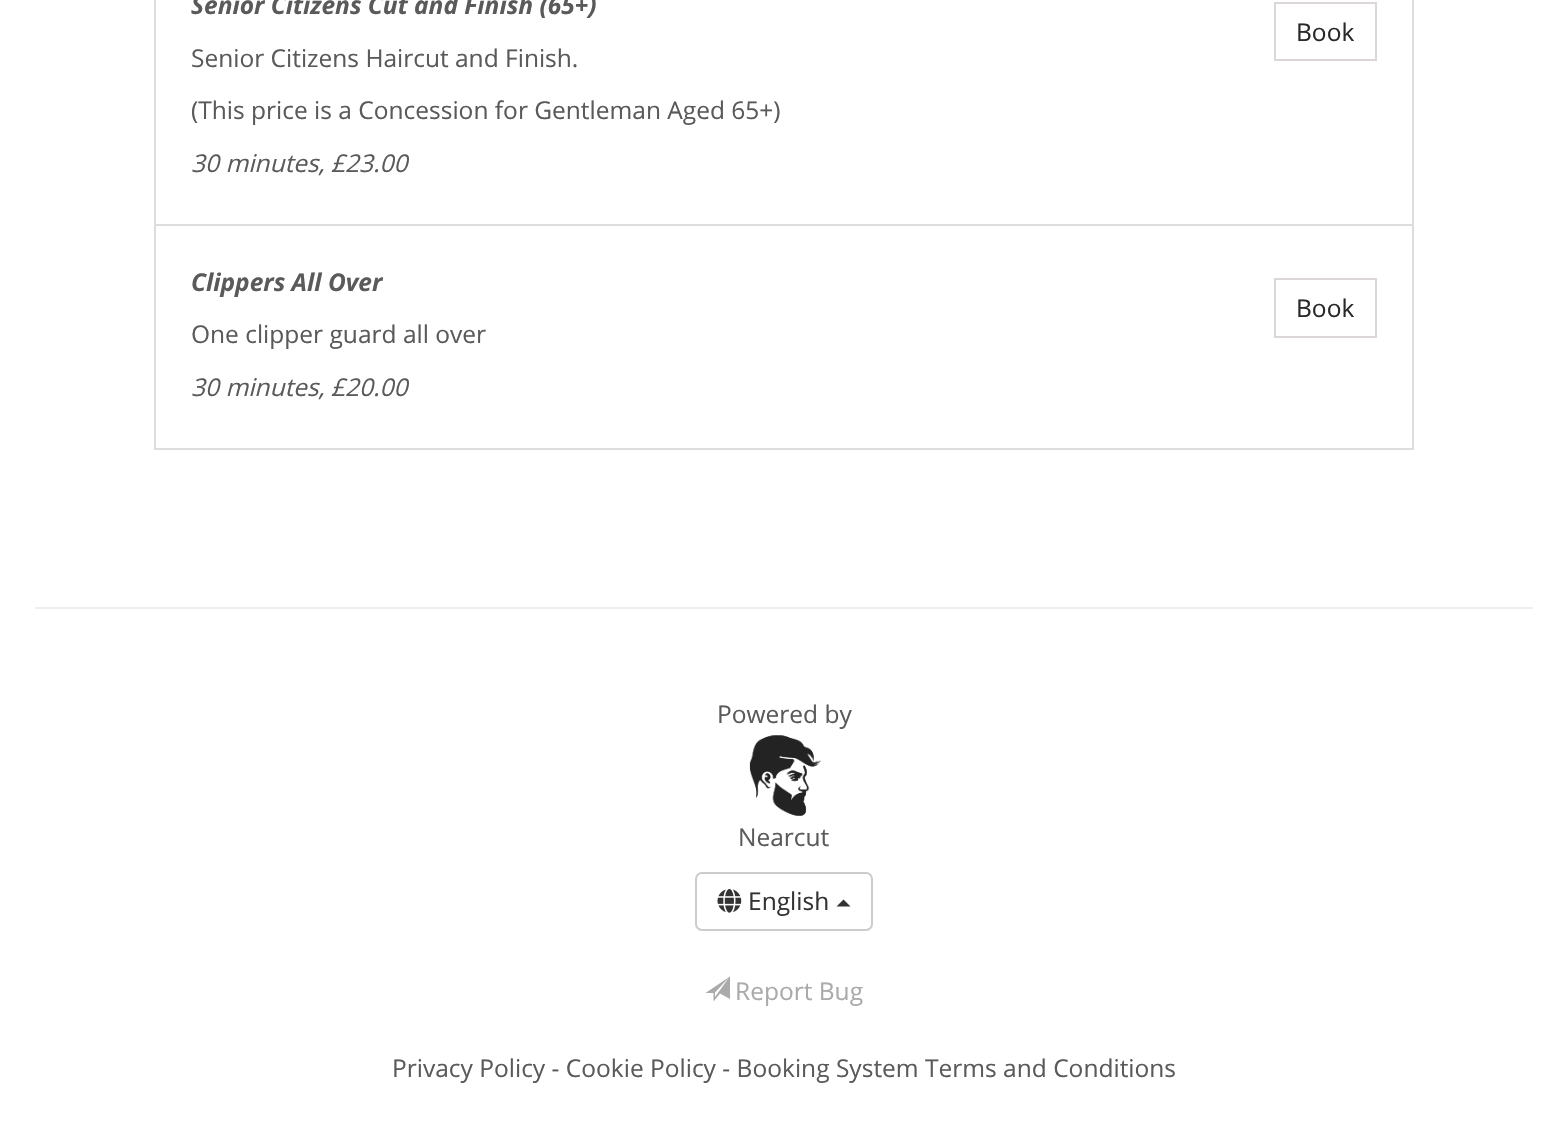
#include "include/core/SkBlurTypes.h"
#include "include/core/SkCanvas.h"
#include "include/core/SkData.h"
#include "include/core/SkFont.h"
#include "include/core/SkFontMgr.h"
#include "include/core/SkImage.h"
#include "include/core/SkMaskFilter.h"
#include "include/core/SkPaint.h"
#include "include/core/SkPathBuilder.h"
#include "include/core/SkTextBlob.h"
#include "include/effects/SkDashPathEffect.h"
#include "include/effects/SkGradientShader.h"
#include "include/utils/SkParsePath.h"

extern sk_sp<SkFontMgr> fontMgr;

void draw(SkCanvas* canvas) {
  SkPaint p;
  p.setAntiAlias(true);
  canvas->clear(SK_ColorWHITE);
  p.setStyle(SkPaint::kStroke_Style);
  p.setStrokeWidth(2);
  p.setColor(SkColorSetRGB(221, 221, 221));
  canvas->drawRect(SkRect::MakeLTRB(155, -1, 1413, 225), p);
  p.setColor(SkColorSetRGB(221, 214, 214));
  canvas->drawRect(SkRect::MakeLTRB(1275, 3, 1376, 60), p);
  p.setColor(SkColorSetRGB(221, 221, 221));
  canvas->drawRect(SkRect::MakeLTRB(155, 225, 1413, 449), p);
  p.setColor(SkColorSetRGB(221, 214, 214));
  canvas->drawRect(SkRect::MakeLTRB(1275, 279, 1376, 337), p);
  p.setStyle(SkPaint::kFill_Style);
  p.setColor(SkColorSetRGB(238, 238, 238));
  canvas->drawRect(SkRect::MakeLTRB(35, 607, 1533, 609), p);
  canvas->drawImageRect(SkImages::DeferredFromEncodedData(SkData::MakeFromFileName("images/1.png")), SkRect::MakeLTRB(749, 735, 821, 816), SkSamplingOptions());
  p.setStyle(SkPaint::kStroke_Style);
  p.setColor(SkColorSetRGB(204, 204, 204));
  canvas->drawRoundRect(SkRect::MakeLTRB(696, 873, 872, 930), 6, 6, p);
  canvas->drawImageRect(SkImages::DeferredFromEncodedData(SkData::MakeFromFileName("images/2.png")), SkRect::MakeLTRB(717, 889, 742, 913), SkSamplingOptions());
  p.setStyle(SkPaint::kFill_Style);
  p.setColor(SkColorSetRGB(51, 51, 51));
  canvas->drawPath(SkPathBuilder().moveTo(850.5f, 906.5f).lineTo(836.5f, 906.5f).lineTo(843.5f, 899.5f).close().detach(), p);
  p.setColor(SkColorSetRGB(170, 170, 170));
  canvas->drawPath(SkPathBuilder().moveTo(730, 999).lineTo(720, 993.5f).lineTo(713.5f, 1001.5f).lineTo(713.5f, 993).lineTo(705.5f, 993).lineTo(730, 976.5f).close().moveTo(715, 992.5f).lineTo(715, 997).lineTo(729, 977.5f).close().detach(), p);
  SkFont font1(fontMgr->matchFamilyStyle("Open Sans", SkFontStyle::BoldItalic()), 24.5f);
  font1.setSubpixel(true);
  p.setColor(SkColorSetRGB(90, 90, 90));
  canvas->drawString("Senior Citizens Cut and Finish (65+)", 191, 14, font1, p);
  SkFont font2(fontMgr->matchFamilyStyle("Open Sans", SkFontStyle::Normal()), 24.5f);
  font2.setSubpixel(true);
  canvas->drawString("Senior Citizens Haircut and Finish.", 191, 67, font2, p);
  canvas->drawString("(This price is a Concession for Gentleman Aged 65+)", 191, 119, font2, p);
  SkFont font3(fontMgr->matchFamilyStyle("Open Sans", SkFontStyle::Italic()), 24.5f);
  font3.setSubpixel(true);
  canvas->drawString("30 minutes, £23.00", 191, 172, font3, p);
  p.setColor(SkColorSetRGB(41, 41, 41));
  canvas->drawString("Book", 1296, 41, font2, p);
  p.setColor(SkColorSetRGB(90, 90, 90));
  canvas->drawString("Clippers All Over", 191, 291, font1, p);
  canvas->drawString("One clipper guard all over", 191, 343, font2, p);
  canvas->drawString("30 minutes, £20.00", 191, 396, font3, p);
  p.setColor(SkColorSetRGB(41, 41, 41));
  canvas->drawString("Book", 1296, 317, font2, p);
  p.setColor(SkColorSetRGB(90, 90, 90));
  canvas->drawString("Powered by", 717, 723, font2, p);
  canvas->drawString("Nearcut", 738, 846, font2, p);
  p.setColor(SkColorSetRGB(51, 51, 51));
  canvas->drawString("English", 748, 910, font2, p);
  p.setColor(SkColorSetRGB(170, 170, 170));
  canvas->drawString("Report Bug", 735, 1000, font2, p);
  p.setColor(SkColorSetRGB(90, 90, 90));
  canvas->drawString("Privacy Policy - Cookie Policy - Booking System Terms and Conditions", 392, 1077, font2, p);
}
